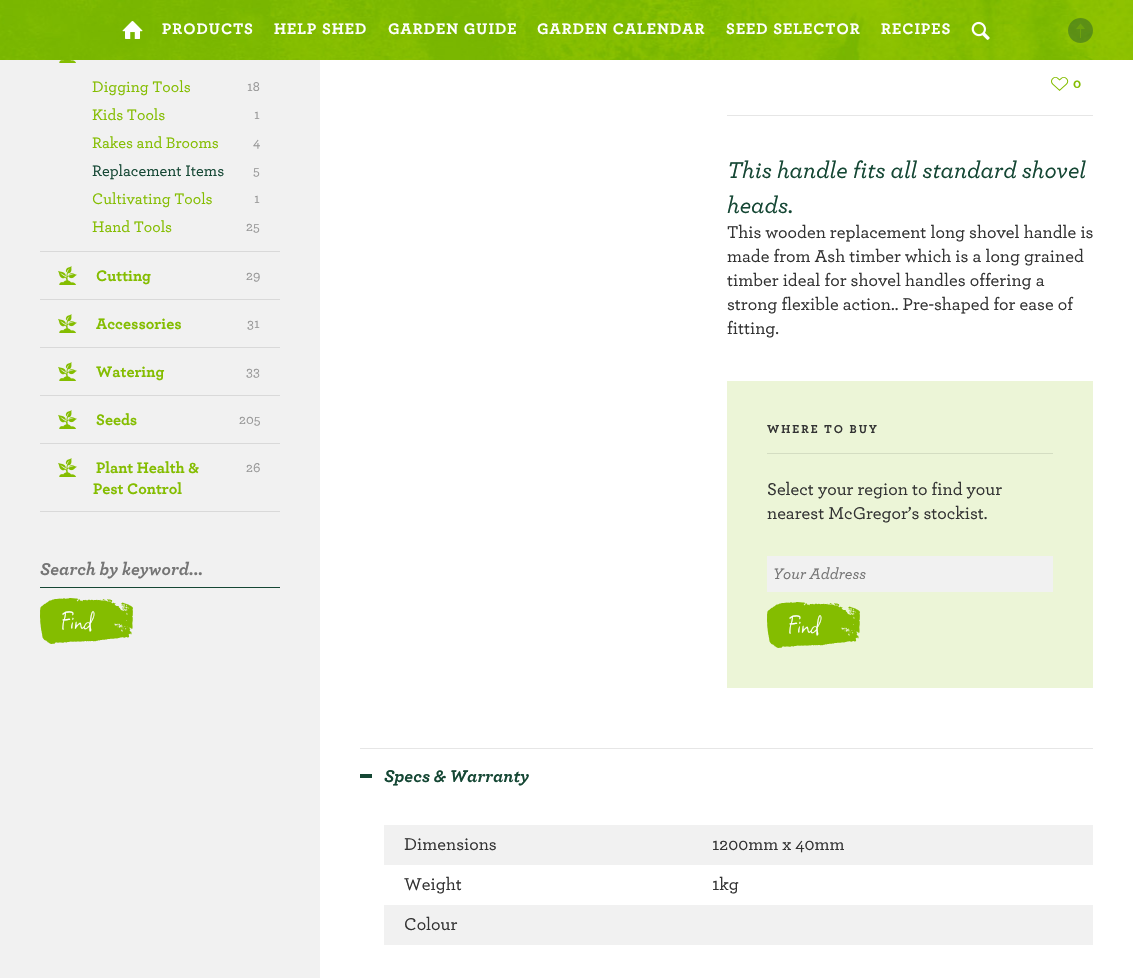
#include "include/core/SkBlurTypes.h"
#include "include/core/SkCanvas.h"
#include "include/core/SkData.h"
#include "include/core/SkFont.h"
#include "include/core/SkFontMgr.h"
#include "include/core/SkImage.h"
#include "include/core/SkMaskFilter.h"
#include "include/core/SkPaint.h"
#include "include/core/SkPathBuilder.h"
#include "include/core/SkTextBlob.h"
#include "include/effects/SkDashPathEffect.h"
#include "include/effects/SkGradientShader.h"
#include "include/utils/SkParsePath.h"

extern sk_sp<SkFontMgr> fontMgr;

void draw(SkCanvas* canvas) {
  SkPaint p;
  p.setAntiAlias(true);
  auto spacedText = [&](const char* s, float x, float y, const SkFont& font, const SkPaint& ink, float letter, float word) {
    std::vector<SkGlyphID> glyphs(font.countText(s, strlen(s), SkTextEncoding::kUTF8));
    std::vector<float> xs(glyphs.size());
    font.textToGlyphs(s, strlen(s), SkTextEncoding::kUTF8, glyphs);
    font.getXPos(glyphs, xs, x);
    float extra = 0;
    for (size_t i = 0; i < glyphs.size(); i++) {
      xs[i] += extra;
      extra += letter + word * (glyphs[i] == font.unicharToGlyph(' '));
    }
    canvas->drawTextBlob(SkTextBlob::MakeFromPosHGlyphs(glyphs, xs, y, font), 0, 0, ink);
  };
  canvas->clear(SkColorSetRGB(241, 241, 241));
  canvas->drawImageRect(SkImages::DeferredFromEncodedData(SkData::MakeFromFileName("images/1.png")), SkRect::MakeLTRB(0, 0, 1133, 60), SkSamplingOptions());
  canvas->drawImageRect(SkImages::DeferredFromEncodedData(SkData::MakeFromFileName("images/2.png")), SkRect::MakeLTRB(122, 21, 143, 39), SkSamplingOptions());
  canvas->drawImageRect(SkImages::DeferredFromEncodedData(SkData::MakeFromFileName("images/3.png")), SkRect::MakeLTRB(971, 21, 990, 40), SkSamplingOptions());
  canvas->drawImageRect(SkImages::DeferredFromEncodedData(SkData::MakeFromFileName("images/4.png")), SkRect::MakeLTRB(1068, 18, 1093, 43), SkSamplingOptions());
  p.setColor(SkColorSetRGB(217, 217, 217));
  canvas->drawRect(SkRect::MakeLTRB(40, 251, 280, 252), p);
  canvas->drawImageRect(SkImages::DeferredFromEncodedData(SkData::MakeFromFileName("images/5.png")), SkRect::MakeLTRB(59, 60, 76, 63), SkSamplingOptions());
  canvas->drawRect(SkRect::MakeLTRB(40, 299, 280, 300), p);
  canvas->drawImageRect(SkImages::DeferredFromEncodedData(SkData::MakeFromFileName("images/6.png")), SkRect::MakeLTRB(58, 266, 77, 285), SkSamplingOptions());
  canvas->drawRect(SkRect::MakeLTRB(40, 347, 280, 348), p);
  canvas->drawImageRect(SkImages::DeferredFromEncodedData(SkData::MakeFromFileName("images/6.png")), SkRect::MakeLTRB(58, 314, 77, 333), SkSamplingOptions());
  canvas->drawRect(SkRect::MakeLTRB(40, 395, 280, 396), p);
  canvas->drawImageRect(SkImages::DeferredFromEncodedData(SkData::MakeFromFileName("images/6.png")), SkRect::MakeLTRB(58, 362, 77, 381), SkSamplingOptions());
  canvas->drawRect(SkRect::MakeLTRB(40, 443, 280, 444), p);
  canvas->drawImageRect(SkImages::DeferredFromEncodedData(SkData::MakeFromFileName("images/6.png")), SkRect::MakeLTRB(58, 410, 77, 429), SkSamplingOptions());
  canvas->drawRect(SkRect::MakeLTRB(40, 511, 280, 512), p);
  canvas->drawImageRect(SkImages::DeferredFromEncodedData(SkData::MakeFromFileName("images/6.png")), SkRect::MakeLTRB(58, 458, 77, 477), SkSamplingOptions());
  p.setColor(SkColorSetRGB(21, 71, 52));
  canvas->drawRect(SkRect::MakeLTRB(40, 587, 280, 588), p);
  canvas->drawImageRect(SkImages::DeferredFromEncodedData(SkData::MakeFromFileName("images/7.png")), SkRect::MakeLTRB(40, 598, 133, 644), SkSamplingOptions());
  p.setColor(SK_ColorWHITE);
  canvas->drawRect(SkRect::MakeLTRB(320, 60, 1133, 978), p);
  p.setColor(SkColorSetRGB(230, 230, 230));
  canvas->drawRect(SkRect::MakeLTRB(727, 115, 1093, 116), p);
  canvas->drawImageRect(SkImages::DeferredFromEncodedData(SkData::MakeFromFileName("images/8.png")), SkRect::MakeLTRB(1051, 77, 1069, 91), SkSamplingOptions());
  p.setColor(SkColorSetRGB(236, 245, 215));
  canvas->drawRect(SkRect::MakeLTRB(727, 381, 1093, 688), p);
  p.setColor(SkColorSetRGB(212, 221, 194));
  canvas->drawRect(SkRect::MakeLTRB(767, 453, 1053, 454), p);
  p.setColor(SkColorSetRGB(241, 241, 241));
  canvas->drawRect(SkRect::MakeLTRB(767, 556, 1053, 592), p);
  canvas->drawImageRect(SkImages::DeferredFromEncodedData(SkData::MakeFromFileName("images/9.png")), SkRect::MakeLTRB(767, 602, 860, 648), SkSamplingOptions());
  p.setColor(SkColorSetRGB(21, 71, 52));
  canvas->drawRect(SkRect::MakeLTRB(360, 774, 372, 778), p);
  p.setColor(SkColorSetRGB(230, 230, 230));
  canvas->drawRect(SkRect::MakeLTRB(360, 748, 1093, 749), p);
  p.setColor(SkColorSetRGB(241, 241, 241));
  canvas->drawRect(SkRect::MakeLTRB(384, 825, 1093, 865), p);
  canvas->drawRect(SkRect::MakeLTRB(384, 905, 1093, 945), p);
  SkFont font1(fontMgr->matchFamilyStyle("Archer", SkFontStyle::Bold()), 16);
  font1.setSubpixel(true);
  p.setColor(SK_ColorWHITE);
  spacedText("PRODUCTS", 162, 34, font1, p, 1, 0);
  spacedText("HELP SHED", 274, 34, font1, p, 1, 0);
  spacedText("GARDEN GUIDE", 388, 34, font1, p, 1, 0);
  spacedText("GARDEN CALENDAR", 537, 34, font1, p, 1, 0);
  spacedText("SEED SELECTOR", 726, 34, font1, p, 1, 0);
  spacedText("RECIPES", 881, 34, font1, p, 1, 0);
  SkFont font2(fontMgr->matchFamilyStyle("Archer", SkFontStyle(500, SkFontStyle::kNormal_Width, SkFontStyle::kUpright_Slant)), 16);
  font2.setSubpixel(true);
  p.setColor(SkColorSetRGB(132, 189, 0));
  canvas->drawString("Digging Tools", 92, 92, font2, p);
  SkFont font3(fontMgr->matchFamilyStyle("Archer", SkFontStyle(500, SkFontStyle::kNormal_Width, SkFontStyle::kUpright_Slant)), 14);
  font3.setSubpixel(true);
  p.setColor(SkColorSetRGB(153, 153, 153));
  canvas->drawString("18", 247, 91, font3, p);
  p.setColor(SkColorSetRGB(132, 189, 0));
  canvas->drawString("Kids Tools", 92, 120, font2, p);
  p.setColor(SkColorSetRGB(153, 153, 153));
  canvas->drawString("1", 254, 119, font3, p);
  p.setColor(SkColorSetRGB(132, 189, 0));
  canvas->drawString("Rakes and Brooms", 92, 148, font2, p);
  p.setColor(SkColorSetRGB(153, 153, 153));
  canvas->drawString("4", 253, 147, font3, p);
  p.setColor(SkColorSetRGB(21, 71, 52));
  canvas->drawString("Replacement Items", 92, 176, font2, p);
  p.setColor(SkColorSetRGB(153, 153, 153));
  canvas->drawString("5", 253, 175, font3, p);
  p.setColor(SkColorSetRGB(132, 189, 0));
  canvas->drawString("Cultivating Tools", 92, 204, font2, p);
  p.setColor(SkColorSetRGB(153, 153, 153));
  canvas->drawString("1", 254, 203, font3, p);
  p.setColor(SkColorSetRGB(132, 189, 0));
  canvas->drawString("Hand Tools", 92, 232, font2, p);
  p.setColor(SkColorSetRGB(153, 153, 153));
  canvas->drawString("25", 246, 231, font3, p);
  p.setColor(SkColorSetRGB(132, 189, 0));
  canvas->drawString("Cutting", 96, 281, font1, p);
  p.setColor(SkColorSetRGB(153, 153, 153));
  canvas->drawString("29", 246, 280, font3, p);
  p.setColor(SkColorSetRGB(132, 189, 0));
  canvas->drawString("Accessories", 96, 329, font1, p);
  p.setColor(SkColorSetRGB(153, 153, 153));
  canvas->drawString("31", 247, 328, font3, p);
  p.setColor(SkColorSetRGB(132, 189, 0));
  canvas->drawString("Watering", 96, 377, font1, p);
  p.setColor(SkColorSetRGB(153, 153, 153));
  canvas->drawString("33", 246, 376, font3, p);
  p.setColor(SkColorSetRGB(132, 189, 0));
  canvas->drawString("Seeds", 96, 425, font1, p);
  p.setColor(SkColorSetRGB(153, 153, 153));
  canvas->drawString("205", 239, 424, font3, p);
  p.setColor(SkColorSetRGB(132, 189, 0));
  canvas->drawString("Plant Health &", 96, 473, font1, p);
  p.setColor(SkColorSetRGB(153, 153, 153));
  canvas->drawString("26", 246, 472, font3, p);
  p.setColor(SkColorSetRGB(132, 189, 0));
  canvas->drawString("Pest Control", 93, 494, font1, p);
  SkFont font4(fontMgr->matchFamilyStyle("Archer", SkFontStyle::BoldItalic()), 18);
  font4.setSubpixel(true);
  p.setColor(SkColorSetRGB(117, 117, 117));
  canvas->drawString("Search by keyword...", 40, 575, font4, p);
  SkFont font5(fontMgr->matchFamilyStyle("Square Peg", SkFontStyle::Normal()), 28);
  font5.setSubpixel(true);
  p.setColor(SK_ColorWHITE);
  canvas->drawString("Find", 60, 629, font5, p);
  SkFont font6(fontMgr->matchFamilyStyle("Archer", SkFontStyle::Bold()), 14);
  font6.setSubpixel(true);
  p.setColor(SkColorSetRGB(132, 189, 0));
  canvas->drawString("0", 1073, 88, font6, p);
  SkFont font7(fontMgr->matchFamilyStyle("Archer", SkFontStyle(500, SkFontStyle::kNormal_Width, SkFontStyle::kItalic_Slant)), 24);
  font7.setSubpixel(true);
  p.setColor(SkColorSetRGB(21, 71, 52));
  canvas->drawString("This handle fits all standard shovel", 727, 178, font7, p);
  canvas->drawString("heads.", 727, 213, font7, p);
  SkFont font8(fontMgr->matchFamilyStyle("Archer", SkFontStyle(500, SkFontStyle::kNormal_Width, SkFontStyle::kUpright_Slant)), 18);
  font8.setSubpixel(true);
  p.setColor(SkColorSetRGB(51, 51, 51));
  canvas->drawString("This wooden replacement long shovel handle is", 727, 238, font8, p);
  canvas->drawString("made from Ash timber which is a long grained", 727, 262, font8, p);
  canvas->drawString("timber ideal for shovel handles offering a", 727, 286, font8, p);
  canvas->drawString("strong flexible action.. Pre-shaped for ease of", 727, 310, font8, p);
  canvas->drawString("fitting.", 727, 334, font8, p);
  SkFont font9(fontMgr->matchFamilyStyle("Archer", SkFontStyle::Bold()), 12);
  font9.setSubpixel(true);
  spacedText("WHERE TO BUY", 767, 433, font9, p, 2, 0);
  canvas->drawString("Select your region to find your", 767, 495, font8, p);
  canvas->drawString("nearest McGregor’s stockist.", 767, 519, font8, p);
  SkFont font10(fontMgr->matchFamilyStyle("Archer", SkFontStyle(500, SkFontStyle::kNormal_Width, SkFontStyle::kItalic_Slant)), 16);
  font10.setSubpixel(true);
  p.setColor(SkColorSetRGB(117, 117, 117));
  canvas->drawString("Your Address", 773, 579, font10, p);
  p.setColor(SK_ColorWHITE);
  canvas->drawString("Find", 787, 633, font5, p);
  p.setColor(SkColorSetRGB(21, 71, 52));
  canvas->drawString("Specs & Warranty", 384, 782, font4, p);
  p.setColor(SkColorSetRGB(51, 51, 51));
  canvas->drawString("Dimensions", 404, 850, font8, p);
  canvas->drawString("1200mm x 40mm", 712, 850, font8, p);
  canvas->drawString("Weight", 404, 890, font8, p);
  canvas->drawString("1kg", 712, 890, font8, p);
  canvas->drawString("Colour", 404, 930, font8, p);
}
